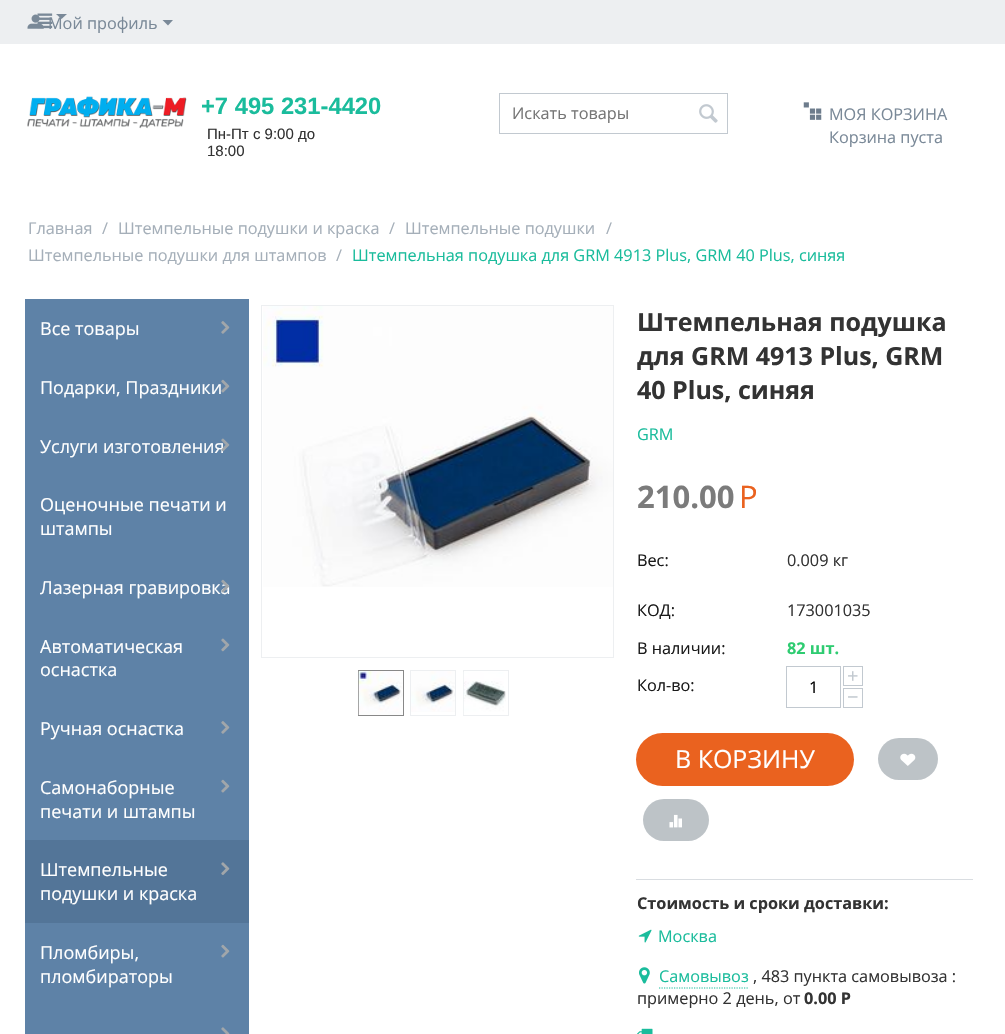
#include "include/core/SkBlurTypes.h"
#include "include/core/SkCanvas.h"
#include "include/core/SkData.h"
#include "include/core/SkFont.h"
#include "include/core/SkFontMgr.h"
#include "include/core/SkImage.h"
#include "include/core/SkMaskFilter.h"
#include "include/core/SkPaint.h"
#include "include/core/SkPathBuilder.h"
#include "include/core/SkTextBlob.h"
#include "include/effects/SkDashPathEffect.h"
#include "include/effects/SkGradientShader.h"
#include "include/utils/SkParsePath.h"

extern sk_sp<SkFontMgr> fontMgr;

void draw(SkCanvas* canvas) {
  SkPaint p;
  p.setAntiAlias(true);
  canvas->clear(SK_ColorWHITE);
  p.setColor(SkColorSetRGB(237, 239, 241));
  canvas->drawRect(SkRect::MakeLTRB(0, 0, 1005, 44), p);
  canvas->drawImageRect(SkImages::DeferredFromEncodedData(SkData::MakeFromFileName("images/1.png")), SkRect::MakeLTRB(37, 13, 53, 29), SkSamplingOptions());
  p.setColor(SkColorSetRGB(122, 137, 152));
  canvas->drawPath(SkPathBuilder().moveTo(61.5f, 19).lineTo(56, 14).lineTo(67, 14).close().detach(), p);
  canvas->drawImageRect(SkImages::DeferredFromEncodedData(SkData::MakeFromFileName("images/2.png")), SkRect::MakeLTRB(27, 14, 44, 29), SkSamplingOptions());
  canvas->drawPath(SkPathBuilder().moveTo(168, 25.5f).lineTo(162.5f, 20).lineTo(173, 20).close().detach(), p);
  canvas->drawImageRect(SkImages::DeferredFromEncodedData(SkData::MakeFromFileName("images/3.png")), SkRect::MakeLTRB(27, 96, 187, 129), SkSamplingOptions());
  p.setStyle(SkPaint::kStroke_Style);
  p.setStrokeWidth(1);
  p.setColor(SkColorSetRGB(194, 201, 208));
  canvas->drawRect(SkRect::MakeLTRB(499.5f, 93.5f, 727.5f, 133.5f), p);
  canvas->drawImageRect(SkImages::DeferredFromEncodedData(SkData::MakeFromFileName("images/4.png")), SkRect::MakeLTRB(699, 104, 718, 123), SkSamplingOptions());
  canvas->drawImageRect(SkImages::DeferredFromEncodedData(SkData::MakeFromFileName("images/5.png")), SkRect::MakeLTRB(803, 102, 822, 120), SkSamplingOptions());
  p.setStyle(SkPaint::kFill_Style);
  p.setColor(SkColorSetRGB(94, 130, 167));
  canvas->drawRect(SkRect::MakeLTRB(25, 299, 249, 1034), p);
  canvas->drawImageRect(SkImages::DeferredFromEncodedData(SkData::MakeFromFileName("images/6.png")), SkRect::MakeLTRB(221, 321, 230, 334), SkSamplingOptions());
  canvas->drawImageRect(SkImages::DeferredFromEncodedData(SkData::MakeFromFileName("images/7.png")), SkRect::MakeLTRB(221, 379, 230, 393), SkSamplingOptions());
  canvas->drawImageRect(SkImages::DeferredFromEncodedData(SkData::MakeFromFileName("images/10.png")), SkRect::MakeLTRB(221, 638, 230, 652), SkSamplingOptions());
  canvas->drawImageRect(SkImages::DeferredFromEncodedData(SkData::MakeFromFileName("images/6.png")), SkRect::MakeLTRB(221, 721, 230, 734), SkSamplingOptions());
  canvas->drawImageRect(SkImages::DeferredFromEncodedData(SkData::MakeFromFileName("images/7.png")), SkRect::MakeLTRB(221, 779, 230, 793), SkSamplingOptions());
  p.setColor(SkColorSetRGB(83, 117, 152));
  canvas->drawRect(SkRect::MakeLTRB(25, 840, 249, 923), p);
  canvas->drawImageRect(SkImages::DeferredFromEncodedData(SkData::MakeFromFileName("images/11.png")), SkRect::MakeLTRB(221, 862, 230, 875), SkSamplingOptions());
  canvas->drawImageRect(SkImages::DeferredFromEncodedData(SkData::MakeFromFileName("images/7.png")), SkRect::MakeLTRB(221, 944, 230, 958), SkSamplingOptions());
  canvas->drawImageRect(SkImages::DeferredFromEncodedData(SkData::MakeFromFileName("images/12.png")), SkRect::MakeLTRB(221, 1027, 230, 1034), SkSamplingOptions());
  p.setStyle(SkPaint::kStroke_Style);
  p.setColor(SkColorSetRGB(237, 239, 241));
  canvas->drawRect(SkRect::MakeLTRB(261.5f, 305.5f, 613.5f, 657.5f), p);
  canvas->drawImageRect(SkImages::DeferredFromEncodedData(SkData::MakeFromFileName("images/13.png")), SkRect::MakeLTRB(263, 306, 613, 587), SkSamplingOptions());
  p.setColor(SkColorSetRGB(136, 136, 136));
  canvas->drawRect(SkRect::MakeLTRB(358.5f, 670.5f, 403.5f, 715.5f), p);
  canvas->drawImageRect(SkImages::DeferredFromEncodedData(SkData::MakeFromFileName("images/14.png")), SkRect::MakeLTRB(358, 671, 403, 715), SkSamplingOptions());
  p.setColor(SkColorSetRGB(237, 239, 241));
  canvas->drawRect(SkRect::MakeLTRB(410.5f, 670.5f, 455.5f, 715.5f), p);
  canvas->drawImageRect(SkImages::DeferredFromEncodedData(SkData::MakeFromFileName("images/15.png")), SkRect::MakeLTRB(411, 671, 455, 712), SkSamplingOptions());
  canvas->drawRect(SkRect::MakeLTRB(463.5f, 670.5f, 508.5f, 715.5f), p);
  canvas->drawImageRect(SkImages::DeferredFromEncodedData(SkData::MakeFromFileName("images/16.png")), SkRect::MakeLTRB(463, 672, 506, 715), SkSamplingOptions());
  p.setColor(SkColorSetRGB(194, 201, 208));
  canvas->drawRect(SkRect::MakeLTRB(843.5f, 666.5f, 862.5f, 685.5f), p);
  canvas->drawRect(SkRect::MakeLTRB(786.5f, 666.5f, 840.5f, 707.5f), p);
  canvas->drawRect(SkRect::MakeLTRB(843.5f, 688.5f, 862.5f, 707.5f), p);
  p.setStyle(SkPaint::kFill_Style);
  p.setColor(SkColorSetRGB(234, 98, 31));
  canvas->drawRoundRect(SkRect::MakeLTRB(636, 733, 854, 786), 26.5f, 26.5f, p);
  p.setColor(SkColorSetRGB(189, 195, 199));
  canvas->drawRoundRect(SkRect::MakeLTRB(878, 738, 938, 780), 21, 21, p);
  canvas->drawImageRect(SkImages::DeferredFromEncodedData(SkData::MakeFromFileName("images/17.png")), SkRect::MakeLTRB(900, 753, 916, 766), SkSamplingOptions());
  canvas->drawRoundRect(SkRect::MakeLTRB(643, 799, 709, 841), 21, 21, p);
  canvas->drawImageRect(SkImages::DeferredFromEncodedData(SkData::MakeFromFileName("images/18.png")), SkRect::MakeLTRB(669, 814, 682, 828), SkSamplingOptions());
  p.setColor(SkColorSetRGB(217, 221, 225));
  canvas->drawRect(SkRect::MakeLTRB(636, 879, 973, 880), p);
  canvas->drawImageRect(SkImages::DeferredFromEncodedData(SkData::MakeFromFileName("images/19.png")), SkRect::MakeLTRB(638, 929, 652, 943), SkSamplingOptions());
  canvas->drawImageRect(SkImages::DeferredFromEncodedData(SkData::MakeFromFileName("images/20.png")), SkRect::MakeLTRB(639, 967, 650, 984), SkSamplingOptions());
  p.setStyle(SkPaint::kStroke_Style);
  p.setStrokeWidth(1.2f);
  p.setColor(SkColorSetRGB(26, 188, 156));
  p.setPathEffect(SkDashPathEffect::Make({{1.25f, 1.25f}}, 0));
  canvas->drawPath(SkPathBuilder().moveTo(659, 988).lineTo(749, 988).detach(), p);
  p.setPathEffect(nullptr);
  canvas->drawImageRect(SkImages::DeferredFromEncodedData(SkData::MakeFromFileName("images/21.png")), SkRect::MakeLTRB(637, 1028, 653, 1034), SkSamplingOptions());
  SkFont font1(fontMgr->matchFamilyStyle("Open Sans", SkFontStyle::Normal()), 16.25f);
  font1.setSubpixel(true);
  p.setStyle(SkPaint::kFill_Style);
  p.setColor(SkColorSetRGB(122, 137, 152));
  canvas->drawString("Мой профиль", 48, 29, font1, p);
  SkFont font2(fontMgr->matchFamilyStyle("Liberation Sans", SkFontStyle::Bold()), 23.75f);
  font2.setSubpixel(true);
  p.setColor(SkColorSetRGB(26, 188, 156));
  canvas->drawString("+7 495 231-4420", 201, 114, font2, p);
  SkFont font3(fontMgr->matchFamilyStyle("Liberation Sans", SkFontStyle::Normal()), 15);
  font3.setSubpixel(true);
  p.setColor(SkColorSetRGB(51, 51, 51));
  canvas->drawString("Пн-Пт с 9:00 до", 207, 139, font3, p);
  canvas->drawString("18:00", 207, 156, font3, p);
  p.setColor(SkColorSetRGB(117, 117, 117));
  canvas->drawString("Искать товары", 512, 119, font1, p);
  p.setColor(SkColorSetRGB(122, 137, 152));
  canvas->drawString("МОЯ КОРЗИНА", 829, 120, font1, p);
  canvas->drawString("Корзина пуста", 829, 143, font1, p);
  p.setColor(SkColorSetRGB(165, 175, 185));
  canvas->drawString("Главная", 28, 234, font1, p);
  canvas->drawString("/", 102, 234, font1, p);
  canvas->drawString("Штемпельные подушки и краска", 118, 234, font1, p);
  canvas->drawString("/", 389, 234, font1, p);
  canvas->drawString("Штемпельные подушки", 405, 234, font1, p);
  canvas->drawString("/", 606, 234, font1, p);
  canvas->drawString("Штемпельные подушки для штампов", 28, 261, font1, p);
  canvas->drawString("/", 336, 261, font1, p);
  p.setColor(SkColorSetRGB(26, 188, 156));
  canvas->drawString("Штемпельная подушка для GRM 4913 Plus, GRM 40 Plus, синяя", 352, 261, font1, p);
  SkFont font4(fontMgr->matchFamilyStyle("Open Sans", SkFontStyle::Normal()), 18);
  font4.setSubpixel(true);
  p.setColor(SK_ColorWHITE);
  canvas->drawString("Все товары", 40, 335, font4, p);
  canvas->drawString("Подарки, Праздники", 40, 394, font4, p);
  canvas->drawString("Услуги изготовления", 40, 453, font4, p);
  canvas->drawImageRect(SkImages::DeferredFromEncodedData(SkData::MakeFromFileName("images/8.png")), SkRect::MakeLTRB(221, 438, 230, 452), SkSamplingOptions());
  canvas->drawString("Оценочные печати и", 40, 511, font4, p);
  canvas->drawString("штампы", 40, 535, font4, p);
  canvas->drawString("Лазерная гравировка", 40, 594, font4, p);
  canvas->drawImageRect(SkImages::DeferredFromEncodedData(SkData::MakeFromFileName("images/9.png")), SkRect::MakeLTRB(221, 579, 230, 593), SkSamplingOptions());
  canvas->drawString("Автоматическая", 40, 653, font4, p);
  canvas->drawString("оснастка", 40, 676, font4, p);
  canvas->drawString("Ручная оснастка", 40, 735, font4, p);
  canvas->drawString("Самонаборные", 40, 794, font4, p);
  canvas->drawString("печати и штампы", 40, 818, font4, p);
  canvas->drawString("Штемпельные", 40, 876, font4, p);
  canvas->drawString("подушки и краска", 40, 900, font4, p);
  canvas->drawString("Пломбиры,", 40, 959, font4, p);
  canvas->drawString("пломбираторы", 40, 983, font4, p);
  SkFont font5(fontMgr->matchFamilyStyle("Open Sans", SkFontStyle::Bold()), 25);
  font5.setSubpixel(true);
  p.setColor(SkColorSetRGB(51, 51, 51));
  canvas->drawString("Штемпельная подушка", 637, 331, font5, p);
  canvas->drawString("для GRM 4913 Plus, GRM", 637, 365, font5, p);
  canvas->drawString("40 Plus, синяя", 637, 399, font5, p);
  p.setColor(SkColorSetRGB(26, 188, 156));
  canvas->drawString("GRM", 637, 440, font1, p);
  SkFont font6(fontMgr->matchFamilyStyle("Open Sans", SkFontStyle::Bold()), 31);
  font6.setSubpixel(true);
  p.setColor(SkColorSetRGB(123, 123, 123));
  canvas->drawString("210.00", 637, 508, font6, p);
  SkFont font7(fontMgr->matchFamilyStyle("Open Sans", SkFontStyle::Normal()), 31);
  font7.setSubpixel(true);
  p.setColor(SkColorSetRGB(234, 98, 31));
  canvas->drawString("Р", 739, 508, font7, p);
  p.setColor(SkColorSetRGB(26, 26, 26));
  canvas->drawString("Вес:", 637, 566, font1, p);
  p.setColor(SkColorSetRGB(51, 51, 51));
  canvas->drawString("0.009 кг", 787, 566, font1, p);
  p.setColor(SkColorSetRGB(26, 26, 26));
  canvas->drawString("КОД:", 637, 616, font1, p);
  p.setColor(SkColorSetRGB(51, 51, 51));
  canvas->drawString("173001035", 787, 616, font1, p);
  p.setColor(SkColorSetRGB(26, 26, 26));
  canvas->drawString("В наличии:", 637, 654, font1, p);
  SkFont font8(fontMgr->matchFamilyStyle("Open Sans", SkFontStyle::Bold()), 16.25f);
  font8.setSubpixel(true);
  p.setColor(SkColorSetRGB(46, 204, 113));
  canvas->drawString("82 шт.", 787, 654, font8, p);
  p.setColor(SkColorSetRGB(26, 26, 26));
  canvas->drawString("Кол-во:", 637, 691, font1, p);
  SkFont font9(fontMgr->matchFamilyStyle("Open Sans", SkFontStyle::Normal()), 20);
  font9.setSubpixel(true);
  p.setColor(SkColorSetRGB(194, 201, 208));
  canvas->drawString("+", 847, 683, font9, p);
  p.setColor(SK_ColorBLACK);
  canvas->drawString("1", 809, 693, font1, p);
  p.setColor(SkColorSetRGB(194, 201, 208));
  canvas->drawString("−", 847, 704, font9, p);
  SkFont font10(fontMgr->matchFamilyStyle("Open Sans", SkFontStyle::Normal()), 25);
  font10.setSubpixel(true);
  p.setColor(SK_ColorWHITE);
  canvas->drawString("В КОРЗИНУ", 675, 768, font10, p);
  p.setColor(SkColorSetRGB(51, 51, 51));
  canvas->drawString("Стоимость и сроки доставки:", 637, 909, font8, p);
  p.setColor(SkColorSetRGB(26, 188, 156));
  canvas->drawString("Москва", 658, 942, font1, p);
  canvas->drawString("Самовывоз", 659, 982, font1, p);
  p.setColor(SkColorSetRGB(51, 51, 51));
  canvas->drawString(", 483 пункта самовывоза :", 753, 982, font1, p);
  canvas->drawString("примерно 2 день, от", 637, 1004, font1, p);
  canvas->drawString("0.00 Р", 804, 1004, font8, p);
}
